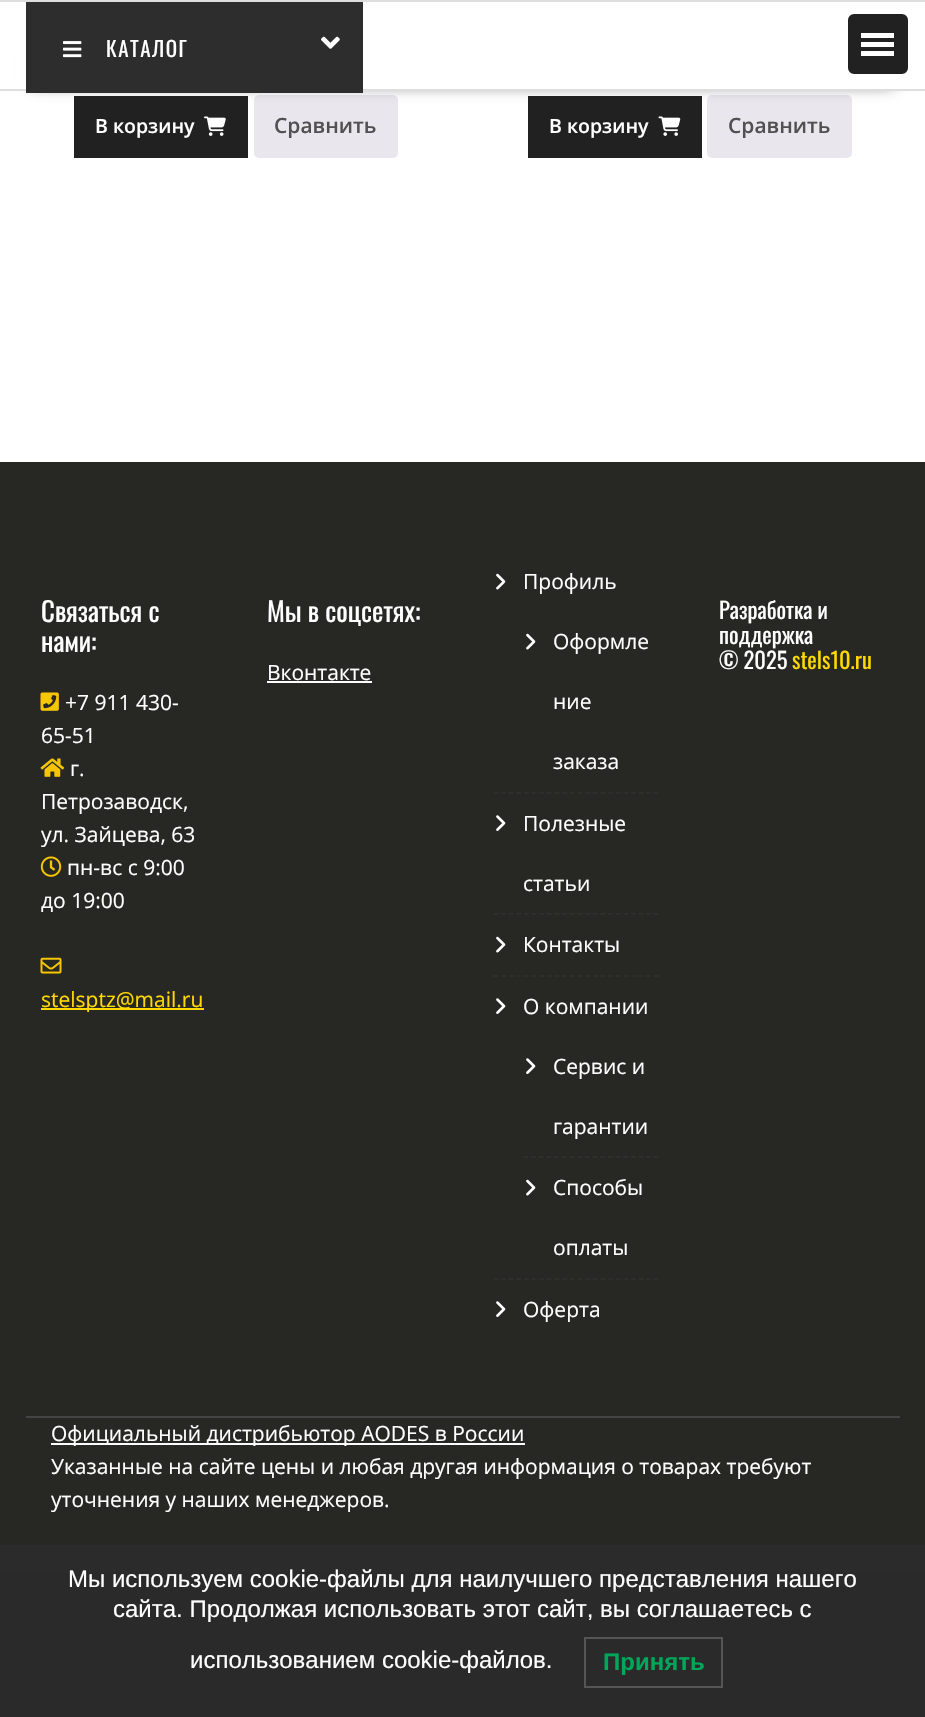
#include "include/core/SkBlurTypes.h"
#include "include/core/SkCanvas.h"
#include "include/core/SkData.h"
#include "include/core/SkFont.h"
#include "include/core/SkFontMgr.h"
#include "include/core/SkImage.h"
#include "include/core/SkMaskFilter.h"
#include "include/core/SkPaint.h"
#include "include/core/SkPathBuilder.h"
#include "include/core/SkTextBlob.h"
#include "include/effects/SkDashPathEffect.h"
#include "include/effects/SkGradientShader.h"
#include "include/utils/SkParsePath.h"

extern sk_sp<SkFontMgr> fontMgr;

void draw(SkCanvas* canvas) {
  SkPaint p;
  p.setAntiAlias(true);
  auto spacedText = [&](const char* s, float x, float y, const SkFont& font, const SkPaint& ink, float letter, float word) {
    std::vector<SkGlyphID> glyphs(font.countText(s, strlen(s), SkTextEncoding::kUTF8));
    std::vector<float> xs(glyphs.size());
    font.textToGlyphs(s, strlen(s), SkTextEncoding::kUTF8, glyphs);
    font.getXPos(glyphs, xs, x);
    float extra = 0;
    for (size_t i = 0; i < glyphs.size(); i++) {
      xs[i] += extra;
      extra += letter + word * (glyphs[i] == font.unicharToGlyph(' '));
    }
    canvas->drawTextBlob(SkTextBlob::MakeFromPosHGlyphs(glyphs, xs, y, font), 0, 0, ink);
  };
  canvas->clear(SK_ColorWHITE);
  p.setColor(SkColorSetRGB(33, 33, 33));
  canvas->drawRect(SkRect::MakeLTRB(74, 96, 248, 158), p);
  p.setColor(SkColorSetRGB(233, 230, 237));
  canvas->drawRoundRect(SkRect::MakeLTRB(254, 95, 398, 158), 5, 5, p);
  p.setColor(SkColorSetRGB(33, 33, 33));
  canvas->drawRect(SkRect::MakeLTRB(528, 96, 702, 158), p);
  p.setColor(SkColorSetRGB(233, 230, 237));
  canvas->drawRoundRect(SkRect::MakeLTRB(707, 95, 852, 158), 5, 5, p);
  p.setColor(SkColorSetARGB(191, 0, 0, 0));
  p.setMaskFilter(SkMaskFilter::MakeBlur(kNormal_SkBlurStyle, 8));
  canvas->drawRect(SkRect::MakeLTRB(32, 57, 894, 84), p);
  p.setMaskFilter(nullptr);
  p.setColor(SK_ColorWHITE);
  canvas->drawRect(SkRect::MakeLTRB(15, 39, 911, 89), p);
  p.setColor(SkColorSetRGB(222, 222, 222));
  canvas->drawRect(SkRect::MakeLTRB(0, 0, 925, 2), p);
  canvas->drawRect(SkRect::MakeLTRB(0, 89, 925, 91), p);
  p.setColor(SkColorSetRGB(45, 45, 45));
  canvas->drawRect(SkRect::MakeLTRB(26, 2, 363, 93), p);
  canvas->drawImageRect(SkImages::DeferredFromEncodedData(SkData::MakeFromFileName("images/1.png")), SkRect::MakeLTRB(63, 41, 82, 58), SkSamplingOptions());
  canvas->drawImageRect(SkImages::DeferredFromEncodedData(SkData::MakeFromFileName("images/2.png")), SkRect::MakeLTRB(321, 36, 340, 49), SkSamplingOptions());
  p.setColor(SkColorSetRGB(33, 33, 33));
  canvas->drawRoundRect(SkRect::MakeLTRB(849, 15, 907, 73), 5, 5, p);
  p.setStyle(SkPaint::kStroke_Style);
  p.setStrokeWidth(2);
  canvas->drawRoundRect(SkRect::MakeLTRB(849, 15, 907, 73), 5, 5, p);
  p.setStyle(SkPaint::kFill_Style);
  p.setColor(SK_ColorWHITE);
  canvas->drawRect(SkRect::MakeLTRB(861, 51, 894, 56), p);
  canvas->drawRect(SkRect::MakeLTRB(861, 42, 894, 47), p);
  canvas->drawRect(SkRect::MakeLTRB(861, 33, 894, 38), p);
  canvas->drawImageRect(SkImages::DeferredFromEncodedData(SkData::MakeFromFileName("images/3.png")), SkRect::MakeLTRB(204, 116, 226, 136), SkSamplingOptions());
  canvas->drawImageRect(SkImages::DeferredFromEncodedData(SkData::MakeFromFileName("images/4.png")), SkRect::MakeLTRB(658, 116, 681, 136), SkSamplingOptions());
  p.setColor(SkColorSetRGB(39, 40, 35));
  canvas->drawRect(SkRect::MakeLTRB(0, 462, 925, 1545), p);
  p.setColor(SkColorSetRGB(43, 43, 43));
  canvas->drawRect(SkRect::MakeLTRB(0, 1545, 925, 1572), p);
  p.setColor(SkColorSetRGB(68, 68, 68));
  canvas->drawRect(SkRect::MakeLTRB(26, 1416, 900, 1418), p);
  canvas->drawImageRect(SkImages::DeferredFromEncodedData(SkData::MakeFromFileName("images/5.png")), SkRect::MakeLTRB(40, 692, 59, 711), SkSamplingOptions());
  canvas->drawImageRect(SkImages::DeferredFromEncodedData(SkData::MakeFromFileName("images/6.png")), SkRect::MakeLTRB(40, 758, 65, 777), SkSamplingOptions());
  canvas->drawImageRect(SkImages::DeferredFromEncodedData(SkData::MakeFromFileName("images/7.png")), SkRect::MakeLTRB(40, 856, 62, 877), SkSamplingOptions());
  canvas->drawImageRect(SkImages::DeferredFromEncodedData(SkData::MakeFromFileName("images/8.png")), SkRect::MakeLTRB(40, 957, 62, 974), SkSamplingOptions());
  p.setColor(SkColorSetRGB(255, 217, 0));
  canvas->drawRect(SkRect::MakeLTRB(41, 1008, 204, 1010), p);
  p.setColor(SK_ColorWHITE);
  canvas->drawRect(SkRect::MakeLTRB(267, 681, 372, 683), p);
  canvas->drawImageRect(SkImages::DeferredFromEncodedData(SkData::MakeFromFileName("images/9.png")), SkRect::MakeLTRB(496, 573, 506, 590), SkSamplingOptions());
  canvas->drawImageRect(SkImages::DeferredFromEncodedData(SkData::MakeFromFileName("images/9.png")), SkRect::MakeLTRB(526, 633, 536, 650), SkSamplingOptions());
  p.setStyle(SkPaint::kStroke_Style);
  p.setStrokeWidth(1.5f);
  p.setColor(SkColorSetRGB(48, 48, 48));
  p.setPathEffect(SkDashPathEffect::Make({{4.5f, 3.15f}}, 0));
  canvas->drawPath(SkPathBuilder().moveTo(493.5f, 793).lineTo(658.5f, 793).detach(), p);
  p.setPathEffect(nullptr);
  canvas->drawImageRect(SkImages::DeferredFromEncodedData(SkData::MakeFromFileName("images/10.png")), SkRect::MakeLTRB(496, 815, 506, 831), SkSamplingOptions());
  p.setPathEffect(SkDashPathEffect::Make({{4.5f, 3.15f}}, 0));
  canvas->drawPath(SkPathBuilder().moveTo(493.5f, 914).lineTo(658.5f, 914).detach(), p);
  p.setPathEffect(nullptr);
  canvas->drawImageRect(SkImages::DeferredFromEncodedData(SkData::MakeFromFileName("images/9.png")), SkRect::MakeLTRB(496, 936, 506, 953), SkSamplingOptions());
  p.setPathEffect(SkDashPathEffect::Make({{4.5f, 3.15f}}, 0));
  canvas->drawPath(SkPathBuilder().moveTo(493.5f, 976).lineTo(658.5f, 976).detach(), p);
  p.setPathEffect(nullptr);
  canvas->drawImageRect(SkImages::DeferredFromEncodedData(SkData::MakeFromFileName("images/10.png")), SkRect::MakeLTRB(496, 998, 506, 1014), SkSamplingOptions());
  canvas->drawImageRect(SkImages::DeferredFromEncodedData(SkData::MakeFromFileName("images/10.png")), SkRect::MakeLTRB(526, 1058, 536, 1074), SkSamplingOptions());
  p.setPathEffect(SkDashPathEffect::Make({{4.5f, 3.18f}}, 0));
  canvas->drawPath(SkPathBuilder().moveTo(523.5f, 1157).lineTo(658.5f, 1157).detach(), p);
  p.setPathEffect(nullptr);
  canvas->drawImageRect(SkImages::DeferredFromEncodedData(SkData::MakeFromFileName("images/9.png")), SkRect::MakeLTRB(526, 1179, 536, 1196), SkSamplingOptions());
  p.setPathEffect(SkDashPathEffect::Make({{4.5f, 3.15f}}, 0));
  canvas->drawPath(SkPathBuilder().moveTo(493.5f, 1279).lineTo(658.5f, 1279).detach(), p);
  p.setPathEffect(nullptr);
  canvas->drawImageRect(SkImages::DeferredFromEncodedData(SkData::MakeFromFileName("images/10.png")), SkRect::MakeLTRB(496, 1301, 506, 1317), SkSamplingOptions());
  p.setStyle(SkPaint::kFill_Style);
  p.setColor(SK_ColorWHITE);
  canvas->drawRect(SkRect::MakeLTRB(51, 1443, 525, 1445), p);
  p.setColor(SkColorSetRGB(42, 42, 42));
  canvas->drawRect(SkRect::MakeLTRB(0, 1572, 925, 1717), p);
  p.setStyle(SkPaint::kStroke_Style);
  p.setStrokeWidth(2);
  p.setColor(SkColorSetRGB(85, 85, 85));
  canvas->drawRect(SkRect::MakeLTRB(585, 1638, 722, 1687), p);
  SkFont font1(fontMgr->matchFamilyStyle("Oswald", SkFontStyle::Normal()), 21);
  font1.setSubpixel(true);
  p.setStyle(SkPaint::kFill_Style);
  p.setColor(SK_ColorWHITE);
  spacedText("КАТАЛОГ", 106, 57, font1, p, 1.5f, 0);
  SkFont font2(fontMgr->matchFamilyStyle("Open Sans", SkFontStyle(600, SkFontStyle::kNormal_Width, SkFontStyle::kUpright_Slant)), 19.5f);
  font2.setSubpixel(true);
  canvas->drawString("В корзину", 95, 133, font2, p);
  SkFont font3(fontMgr->matchFamilyStyle("Open Sans", SkFontStyle(600, SkFontStyle::kNormal_Width, SkFontStyle::kUpright_Slant)), 21);
  font3.setSubpixel(true);
  p.setColor(SkColorSetRGB(81, 81, 81));
  canvas->drawString("Сравнить", 274, 133, font3, p);
  p.setColor(SK_ColorWHITE);
  canvas->drawString("В корзину", 549, 133, font2, p);
  p.setColor(SkColorSetRGB(81, 81, 81));
  canvas->drawString("Сравнить", 728, 133, font3, p);
  SkFont font4(fontMgr->matchFamilyStyle("Oswald", SkFontStyle::Normal()), 27);
  font4.setSubpixel(true);
  p.setColor(SK_ColorWHITE);
  canvas->drawString("Связаться с", 41, 622, font4, p);
  canvas->drawString("нами:", 41, 652, font4, p);
  SkFont font5(fontMgr->matchFamilyStyle("Open Sans", SkFontStyle::Normal()), 21);
  font5.setSubpixel(true);
  canvas->drawString("+7 911 430-", 65, 710, font5, p);
  canvas->drawString("65-51", 41, 743, font5, p);
  canvas->drawString("г.", 70, 776, font5, p);
  canvas->drawString("Петрозаводск,", 41, 809, font5, p);
  canvas->drawString("ул. Зайцева, 63", 41, 842, font5, p);
  canvas->drawString("пн-вс с 9:00", 67, 875, font5, p);
  canvas->drawString("до 19:00", 41, 908, font5, p);
  p.setColor(SkColorSetRGB(255, 217, 0));
  canvas->drawString("stelsptz@mail.ru", 41, 1007, font5, p);
  p.setColor(SK_ColorWHITE);
  canvas->drawString("Мы в соцсетях:", 267, 622, font4, p);
  canvas->drawString("Вконтакте", 267, 680, font5, p);
  canvas->drawString("Профиль", 523, 589, font5, p);
  canvas->drawString("Оформле", 553, 649, font5, p);
  canvas->drawString("ние", 553, 709, font5, p);
  canvas->drawString("заказа", 553, 769, font5, p);
  canvas->drawString("Полезные", 523, 831, font5, p);
  canvas->drawString("статьи", 523, 891, font5, p);
  canvas->drawString("Контакты", 523, 952, font5, p);
  canvas->drawString("О компании", 523, 1014, font5, p);
  canvas->drawString("Сервис и", 553, 1074, font5, p);
  canvas->drawString("гарантии", 553, 1134, font5, p);
  canvas->drawString("Способы", 553, 1195, font5, p);
  canvas->drawString("оплаты", 553, 1255, font5, p);
  canvas->drawString("Оферта", 523, 1317, font5, p);
  SkFont font6(fontMgr->matchFamilyStyle("Oswald", SkFontStyle::Normal()), 22.5f);
  font6.setSubpixel(true);
  canvas->drawString("Разработка и", 719, 619, font6, p);
  canvas->drawString("поддержка", 719, 644, font6, p);
  canvas->drawString("© 2025", 719, 669, font6, p);
  p.setColor(SkColorSetRGB(255, 217, 0));
  canvas->drawString("stels10.ru", 792, 669, font6, p);
  p.setColor(SK_ColorWHITE);
  canvas->drawString("Официальный дистрибьютор AODES в России", 51, 1441, font5, p);
  canvas->drawString("Указанные на сайте цены и любая другая информация о товарах требуют", 51, 1474, font5, p);
  canvas->drawString("уточнения у наших менеджеров.", 51, 1507, font5, p);
  SkFont font7(fontMgr->matchFamilyStyle("Liberation Sans", SkFontStyle::Normal()), 24);
  font7.setSubpixel(true);
  canvas->drawString("Мы используем cookie-файлы для наилучшего представления нашего", 68, 1587, font7, p);
  canvas->drawString("сайта. Продолжая использовать этот сайт, вы соглашаетесь с", 113, 1617, font7, p);
  canvas->drawString("использованием cookie-файлов.", 190, 1668, font7, p);
  SkFont font8(fontMgr->matchFamilyStyle("Liberation Sans", SkFontStyle::Bold()), 24);
  font8.setSubpixel(true);
  p.setColor(SkColorSetRGB(0, 166, 90));
  canvas->drawString("Принять", 603, 1670, font8, p);
}
